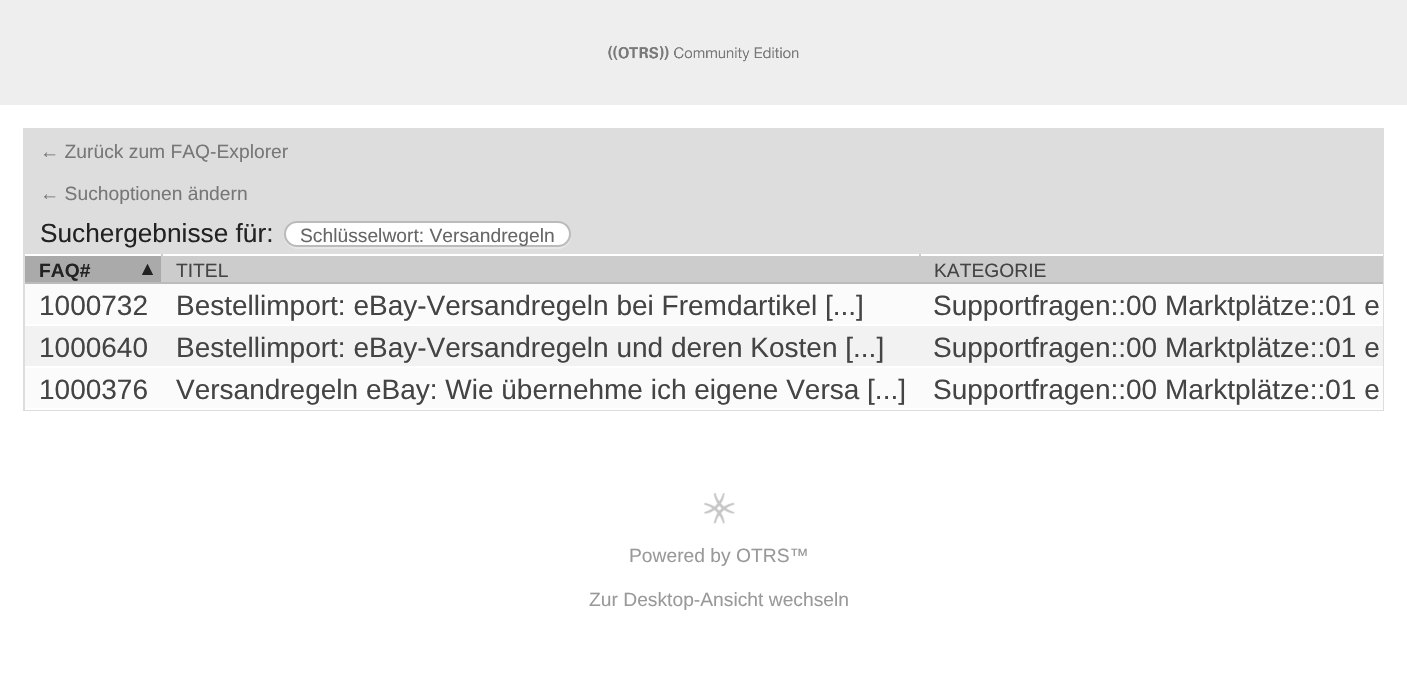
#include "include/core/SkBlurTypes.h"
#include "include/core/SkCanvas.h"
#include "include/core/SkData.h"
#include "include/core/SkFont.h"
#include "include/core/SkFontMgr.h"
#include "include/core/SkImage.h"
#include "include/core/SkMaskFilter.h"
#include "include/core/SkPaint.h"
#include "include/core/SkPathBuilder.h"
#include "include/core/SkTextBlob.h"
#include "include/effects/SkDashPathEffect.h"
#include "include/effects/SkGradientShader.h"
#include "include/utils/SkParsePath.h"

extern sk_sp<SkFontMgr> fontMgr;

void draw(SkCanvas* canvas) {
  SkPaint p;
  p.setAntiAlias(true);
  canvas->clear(SK_ColorWHITE);
  p.setColor(SkColorSetRGB(238, 238, 238));
  canvas->drawRect(SkRect::MakeLTRB(0, 0, 1407, 105), p);
  canvas->drawImageRect(SkImages::DeferredFromEncodedData(SkData::MakeFromFileName("images/1.png")), SkRect::MakeLTRB(608, 45, 799, 62), SkSamplingOptions());
  p.setStyle(SkPaint::kStroke_Style);
  p.setStrokeWidth(2);
  p.setColor(SkColorSetRGB(221, 221, 221));
  canvas->drawRect(SkRect::MakeLTRB(24, 129, 1383, 410), p);
  p.setStyle(SkPaint::kFill_Style);
  canvas->drawRect(SkRect::MakeLTRB(25, 130, 1382, 254), p);
  p.setColor(SkColorSetRGB(232, 232, 232));
  canvas->drawPath(SkPathBuilder().moveTo(284, 238).cubicTo(285, 244, 291, 249, 298, 249).lineTo(558, 249).cubicTo(565, 249, 571, 243, 571, 236).lineTo(570, 231).lineTo(570, 234).cubicTo(570, 241, 565, 247, 557, 247).lineTo(297, 247).cubicTo(291, 247, 286, 243, 284, 238).close().detach(), p);
  p.setColor(SK_ColorWHITE);
  canvas->drawRoundRect(SkRect::MakeLTRB(285, 222, 570, 246), 12, 12, p);
  p.setStyle(SkPaint::kStroke_Style);
  p.setColor(SkColorSetRGB(187, 187, 187));
  canvas->drawRoundRect(SkRect::MakeLTRB(285, 222, 570, 246), 12, 12, p);
  p.setStyle(SkPaint::kFill_Style);
  p.setColor(SkColorSetRGB(204, 204, 204));
  canvas->drawRect(SkRect::MakeLTRB(163, 256, 1383, 282), p);
  p.setColor(SkColorSetRGB(187, 187, 187));
  canvas->drawRect(SkRect::MakeLTRB(919, 282, 1383, 284), p);
  p.setColor(SkColorSetRGB(204, 204, 204));
  canvas->drawRect(SkRect::MakeLTRB(919, 254, 921, 284), p);
  p.setColor(SkColorSetRGB(187, 187, 187));
  canvas->drawRect(SkRect::MakeLTRB(161, 282, 921, 284), p);
  p.setColor(SkColorSetRGB(204, 204, 204));
  canvas->drawRect(SkRect::MakeLTRB(161, 254, 163, 284), p);
  p.setColor(SkColorSetRGB(187, 187, 187));
  canvas->drawRect(SkRect::MakeLTRB(25, 282, 163, 284), p);
  p.setColor(SkColorSetRGB(170, 170, 170));
  canvas->drawRect(SkRect::MakeLTRB(25, 256, 161, 282), p);
  p.setColor(SK_ColorWHITE);
  canvas->drawRect(SkRect::MakeLTRB(1382, 254, 1383, 256), p);
  canvas->drawRect(SkRect::MakeLTRB(1382, 324, 1383, 326), p);
  p.setColor(SkColorSetRGB(251, 251, 251));
  canvas->drawRect(SkRect::MakeLTRB(25, 284, 1383, 324), p);
  p.setColor(SK_ColorWHITE);
  canvas->drawRect(SkRect::MakeLTRB(1382, 366, 1383, 368), p);
  p.setColor(SkColorSetRGB(242, 242, 242));
  canvas->drawRect(SkRect::MakeLTRB(25, 326, 1383, 366), p);
  p.setColor(SK_ColorWHITE);
  canvas->drawRect(SkRect::MakeLTRB(25, 408, 1383, 410), p);
  p.setColor(SkColorSetRGB(251, 251, 251));
  canvas->drawRect(SkRect::MakeLTRB(25, 368, 1383, 408), p);
  canvas->drawImageRect(SkImages::DeferredFromEncodedData(SkData::MakeFromFileName("images/2.png")), SkRect::MakeLTRB(704, 493, 735, 524), SkSamplingOptions());
  SkFont font1(fontMgr->matchFamilyStyle("Liberation Sans", SkFontStyle::Normal()), 19.25f);
  font1.setSubpixel(true);
  p.setColor(SkColorSetRGB(119, 119, 119));
  canvas->drawString("← Zurück zum FAQ-Explorer", 40, 158, font1, p);
  canvas->drawString("← Suchoptionen ändern", 40, 200, font1, p);
  SkFont font2(fontMgr->matchFamilyStyle("Liberation Sans", SkFontStyle::Normal()), 26.25f);
  font2.setSubpixel(true);
  p.setColor(SkColorSetRGB(34, 34, 34));
  canvas->drawString("Suchergebnisse für:", 40, 242, font2, p);
  p.setColor(SkColorSetRGB(102, 102, 102));
  canvas->drawString("Schlüsselwort: Versandregeln", 300, 242, font1, p);
  SkFont font3(fontMgr->matchFamilyStyle("Liberation Sans", SkFontStyle::Bold()), 19.25f);
  font3.setSubpixel(true);
  p.setColor(SkColorSetRGB(34, 34, 34));
  canvas->drawString("FAQ#", 39, 277, font3, p);
  canvas->drawString("▲", 138, 275, font3, p);
  p.setColor(SkColorSetRGB(68, 68, 68));
  canvas->drawString("TITEL", 176, 277, font1, p);
  canvas->drawString("KATEGORIE", 934, 277, font1, p);
  SkFont font4(fontMgr->matchFamilyStyle("Liberation Sans", SkFontStyle::Normal()), 28);
  font4.setSubpixel(true);
  canvas->drawString("1000732", 39, 315, font4, p);
  canvas->drawString("Bestellimport: eBay-Versandregeln bei Fremdartikel [...]", 176, 315, font4, p);
  canvas->drawString("Supportfragen::00 Marktplätze::01 e", 933, 315, font4, p);
  canvas->drawString("1000640", 39, 357, font4, p);
  canvas->drawString("Bestellimport: eBay-Versandregeln und deren Kosten [...]", 176, 357, font4, p);
  canvas->drawString("Supportfragen::00 Marktplätze::01 e", 933, 357, font4, p);
  canvas->drawString("1000376", 39, 399, font4, p);
  canvas->drawString("Versandregeln eBay: Wie übernehme ich eigene Versa [...]", 176, 399, font4, p);
  canvas->drawString("Supportfragen::00 Marktplätze::01 e", 933, 399, font4, p);
  p.setColor(SkColorSetRGB(153, 153, 153));
  canvas->drawString("Powered by OTRS™", 629, 562, font1, p);
  canvas->drawString("Zur Desktop-Ansicht wechseln", 589, 606, font1, p);
}
